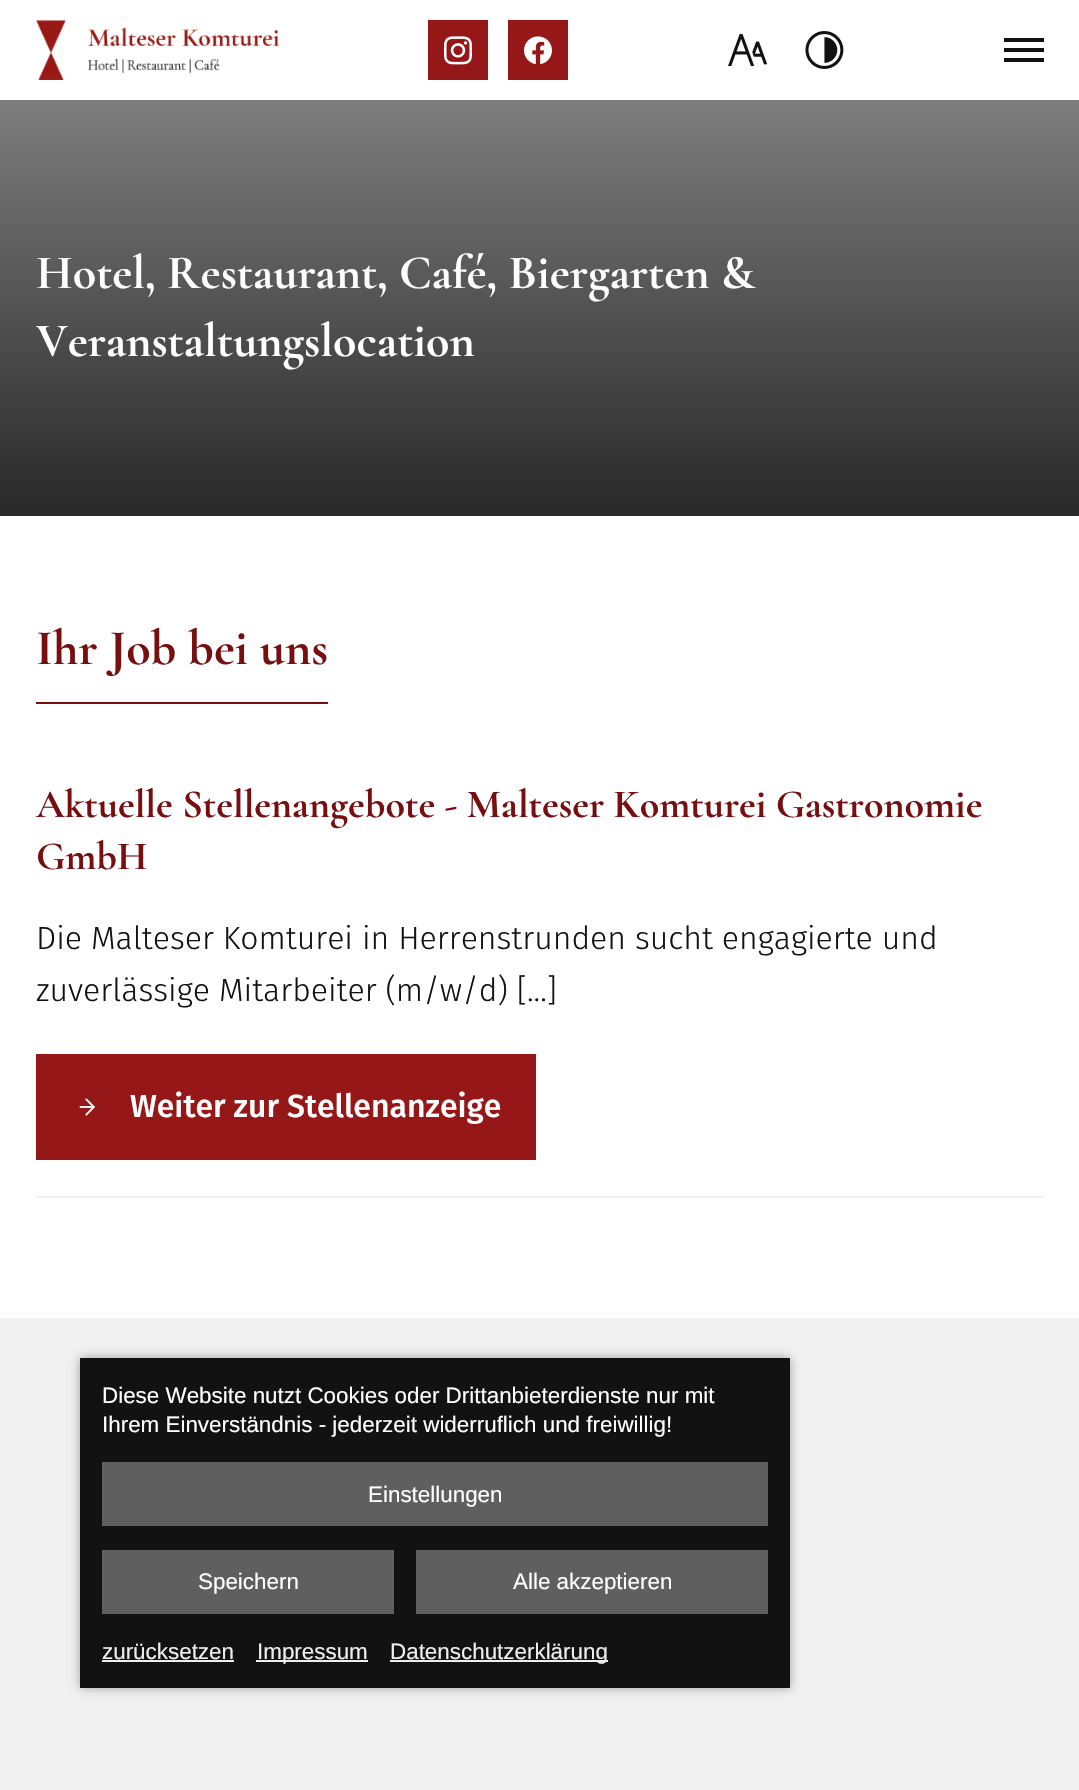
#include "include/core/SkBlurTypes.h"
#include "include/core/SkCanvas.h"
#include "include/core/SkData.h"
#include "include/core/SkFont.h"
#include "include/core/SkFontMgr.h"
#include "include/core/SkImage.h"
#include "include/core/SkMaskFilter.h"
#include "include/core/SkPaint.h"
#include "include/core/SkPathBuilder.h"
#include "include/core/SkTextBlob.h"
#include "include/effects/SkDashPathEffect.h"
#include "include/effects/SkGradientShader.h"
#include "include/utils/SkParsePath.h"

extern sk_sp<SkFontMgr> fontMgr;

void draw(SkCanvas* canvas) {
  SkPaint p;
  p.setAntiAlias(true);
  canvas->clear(SK_ColorWHITE);
  canvas->drawImageRect(SkImages::DeferredFromEncodedData(SkData::MakeFromFileName("images/1.png")), SkRect::MakeLTRB(36, 20, 280, 80), SkSamplingOptions());
  p.setColor(SkColorSetRGB(149, 23, 24));
  canvas->drawRect(SkRect::MakeLTRB(428, 20, 488, 80), p);
  canvas->drawImageRect(SkImages::DeferredFromEncodedData(SkData::MakeFromFileName("images/2.png")), SkRect::MakeLTRB(444, 36, 472, 65), SkSamplingOptions());
  canvas->drawRect(SkRect::MakeLTRB(508, 20, 568, 80), p);
  canvas->drawImageRect(SkImages::DeferredFromEncodedData(SkData::MakeFromFileName("images/3.png")), SkRect::MakeLTRB(524, 36, 552, 65), SkSamplingOptions());
  canvas->drawImageRect(SkImages::DeferredFromEncodedData(SkData::MakeFromFileName("images/4.png")), SkRect::MakeLTRB(728, 34, 767, 66), SkSamplingOptions());
  canvas->drawImageRect(SkImages::DeferredFromEncodedData(SkData::MakeFromFileName("images/5.png")), SkRect::MakeLTRB(805, 31, 844, 69), SkSamplingOptions());
  p.setColor(SkColorSetRGB(18, 18, 18));
  canvas->drawRect(SkRect::MakeLTRB(1004, 48, 1044, 52), p);
  canvas->drawRect(SkRect::MakeLTRB(1004, 38, 1044, 42), p);
  canvas->drawRect(SkRect::MakeLTRB(1004, 58, 1044, 62), p);
  {
    const SkColor colors[] = {SkColorSetRGB(40, 40, 40), SkColorSetRGB(125, 125, 125)};
    const float stops[] = {0, 1};
    const SkPoint ends[] = {{540, 516}, {540, 100}};
    p.setShader(SkGradientShader::MakeLinear(ends, colors, stops, 2, SkTileMode::kClamp));
    p.setAlpha(255);
  }
  canvas->drawRect(SkRect::MakeLTRB(0, 100, 1079, 516), p);
  p.setShader(nullptr);
  p.setColor(SkColorSetRGB(119, 15, 16));
  canvas->drawRect(SkRect::MakeLTRB(36, 702, 328, 704), p);
  p.setColor(SkColorSetRGB(242, 242, 240));
  canvas->drawRect(SkRect::MakeLTRB(36, 1196, 1044, 1198), p);
  p.setColor(SkColorSetRGB(149, 23, 24));
  canvas->drawRect(SkRect::MakeLTRB(36, 1054, 536, 1160), p);
  canvas->drawImageRect(SkImages::DeferredFromEncodedData(SkData::MakeFromFileName("images/6.png")), SkRect::MakeLTRB(79, 1098, 95, 1116), SkSamplingOptions());
  p.setColor(SkColorSetRGB(241, 241, 241));
  canvas->drawRect(SkRect::MakeLTRB(0, 1318, 1079, 1790), p);
  p.setColor(SkColorSetARGB(89, 0, 0, 0));
  p.setMaskFilter(SkMaskFilter::MakeBlur(kNormal_SkBlurStyle, 5));
  canvas->drawRect(SkRect::MakeLTRB(80, 1358, 790, 1688), p);
  p.setMaskFilter(nullptr);
  p.setColor(SkColorSetRGB(18, 18, 18));
  canvas->drawRect(SkRect::MakeLTRB(80, 1358, 790, 1688), p);
  p.setColor(SkColorSetRGB(95, 95, 95));
  canvas->drawRect(SkRect::MakeLTRB(102, 1462, 768, 1526), p);
  canvas->drawRect(SkRect::MakeLTRB(102, 1550, 394, 1614), p);
  canvas->drawRect(SkRect::MakeLTRB(416, 1550, 768, 1614), p);
  p.setColor(SkColorSetRGB(238, 238, 238));
  canvas->drawRect(SkRect::MakeLTRB(102, 1660, 234, 1662), p);
  canvas->drawRect(SkRect::MakeLTRB(256, 1660, 368, 1662), p);
  canvas->drawRect(SkRect::MakeLTRB(390, 1660, 608, 1662), p);
  SkFont font1(fontMgr->matchFamilyStyle("Cormorant Garamond", SkFontStyle::Bold()), 48);
  font1.setSubpixel(true);
  p.setColor(SK_ColorWHITE);
  canvas->drawString("Hotel, Restaurant, Café, Biergarten &", 36, 288, font1, p);
  canvas->drawString("Veranstaltungslocation", 36, 356, font1, p);
  SkFont font2(fontMgr->matchFamilyStyle("Cormorant Garamond", SkFontStyle::Bold()), 50);
  font2.setSubpixel(true);
  p.setColor(SkColorSetRGB(119, 15, 16));
  canvas->drawString("Ihr Job bei uns", 36, 664, font2, p);
  SkFont font3(fontMgr->matchFamilyStyle("Cormorant Garamond", SkFontStyle::Bold()), 40);
  font3.setSubpixel(true);
  canvas->drawString("Aktuelle Stellenangebote - Malteser Komturei Gastronomie", 36, 817, font3, p);
  canvas->drawString("GmbH", 36, 869, font3, p);
  SkFont font4(fontMgr->matchFamilyStyle("Fira Sans", SkFontStyle(300, SkFontStyle::kNormal_Width, SkFontStyle::kUpright_Slant)), 32);
  font4.setSubpixel(true);
  p.setColor(SkColorSetRGB(18, 18, 18));
  canvas->drawString("Die Malteser Komturei in Herrenstrunden sucht engagierte und", 36, 949, font4, p);
  canvas->drawString("zuverlässige Mitarbeiter (m/w/d) [...]", 36, 1001, font4, p);
  SkFont font5(fontMgr->matchFamilyStyle("Fira Sans", SkFontStyle(500, SkFontStyle::kNormal_Width, SkFontStyle::kUpright_Slant)), 32);
  font5.setSubpixel(true);
  p.setColor(SK_ColorWHITE);
  canvas->drawString("Weiter zur Stellenanzeige", 130, 1117, font5, p);
  SkFont font6(fontMgr->matchFamilyStyle("Liberation Sans", SkFontStyle::Normal()), 22.4f);
  font6.setSubpixel(true);
  canvas->drawString("Diese Website nutzt Cookies oder Drittanbieterdienste nur mit", 102, 1403, font6, p);
  canvas->drawString("Ihrem Einverständnis - jederzeit widerruflich und freiwillig!", 102, 1432, font6, p);
  canvas->drawString("Einstellungen", 368, 1502, font6, p);
  canvas->drawString("Speichern", 198, 1589, font6, p);
  canvas->drawString("Alle akzeptieren", 513, 1589, font6, p);
  p.setColor(SkColorSetRGB(238, 238, 238));
  canvas->drawString("zurücksetzen", 102, 1659, font6, p);
  canvas->drawString("Impressum", 257, 1659, font6, p);
  canvas->drawString("Datenschutzerklärung", 390, 1659, font6, p);
}
